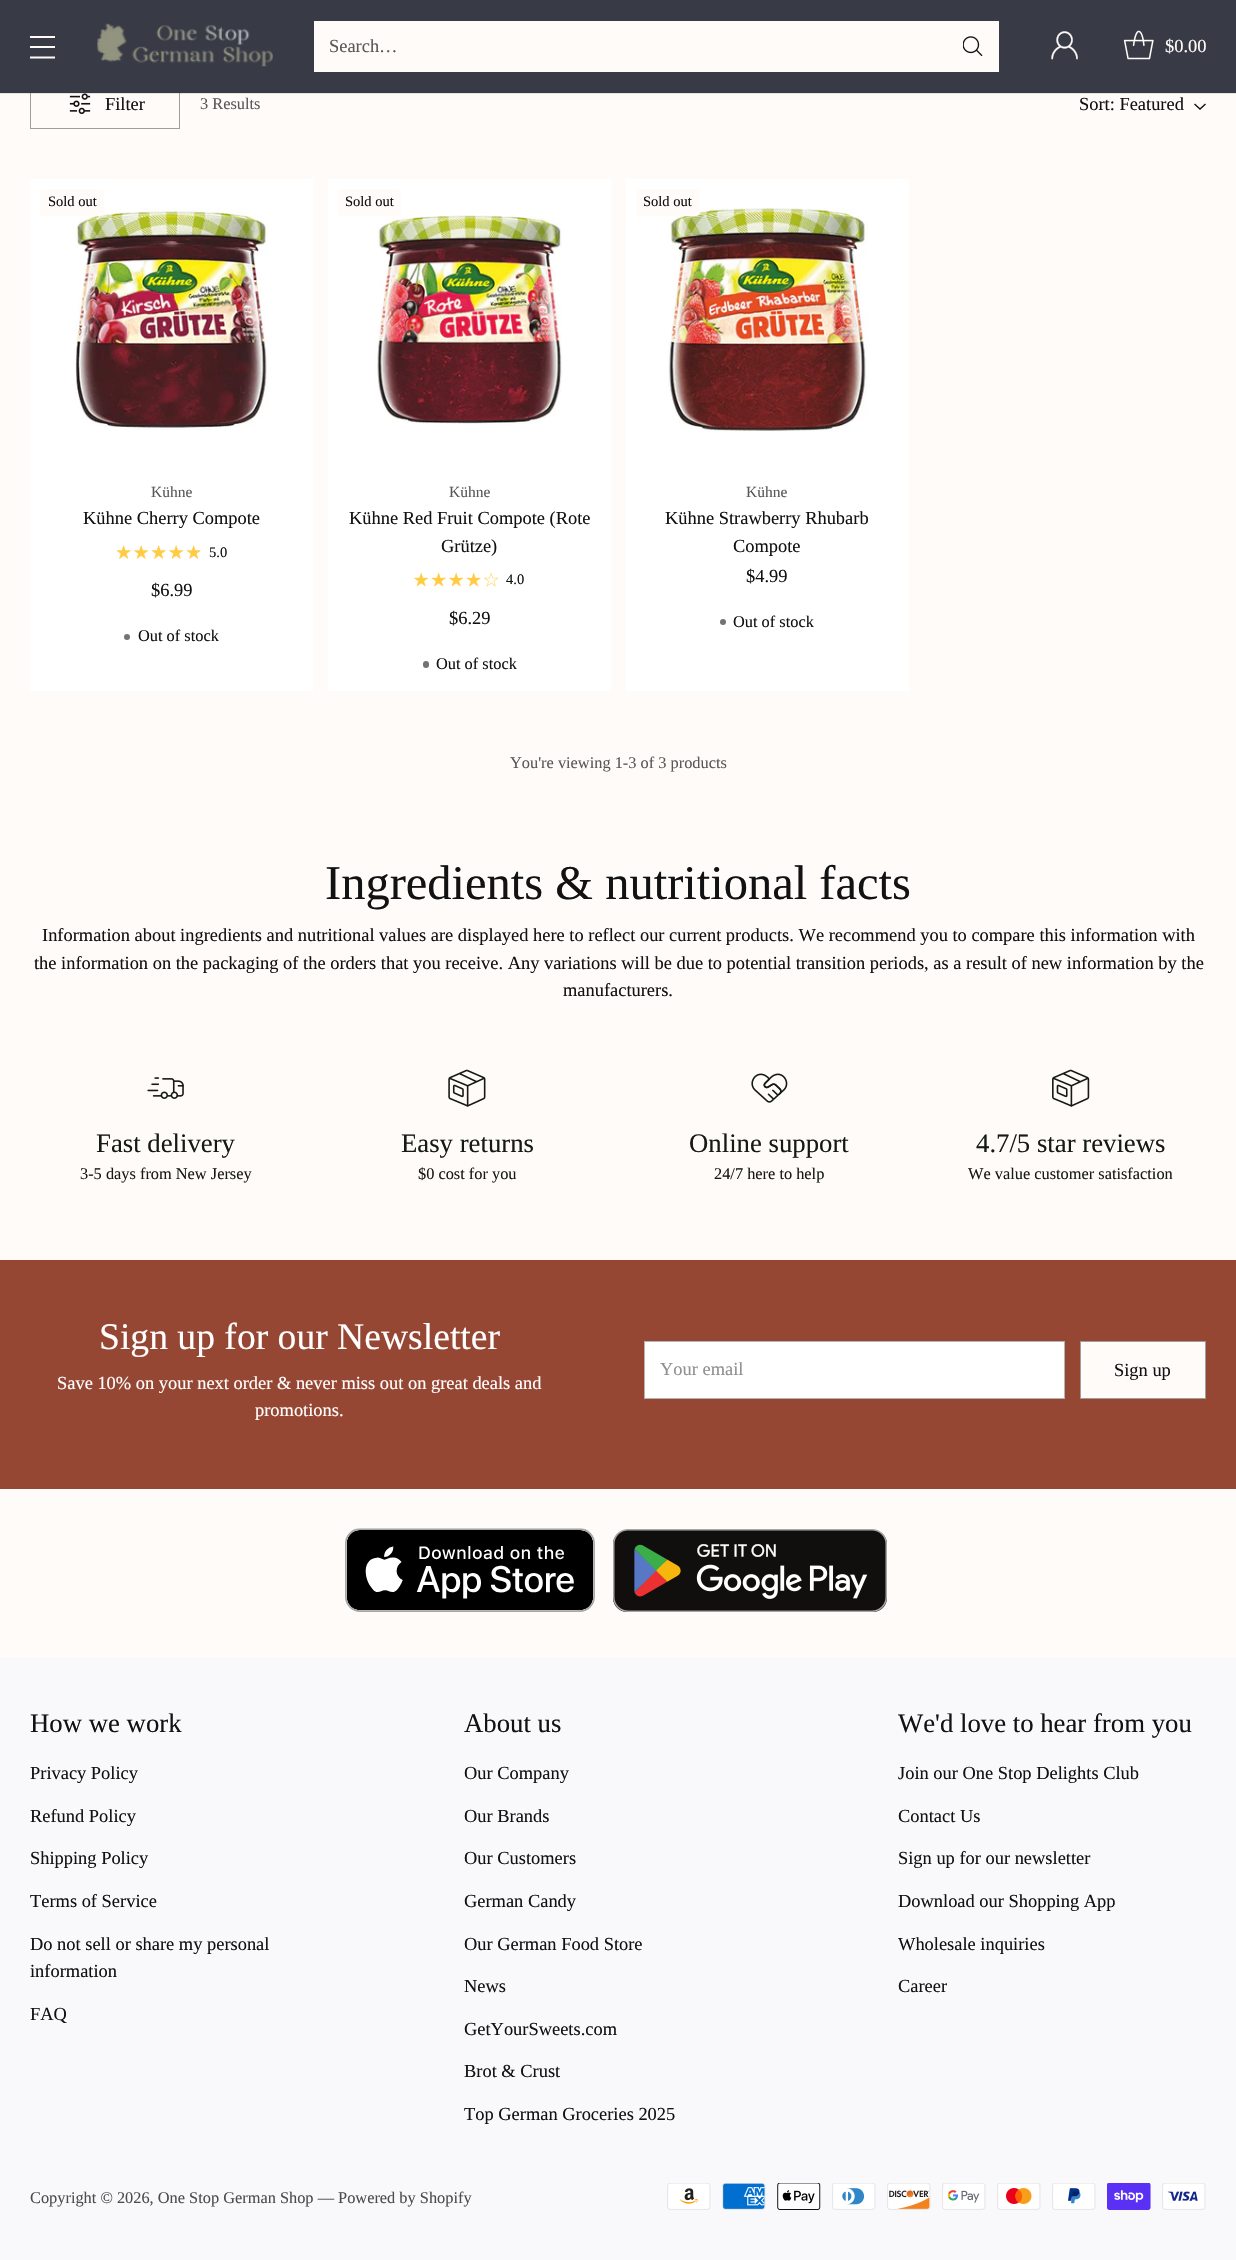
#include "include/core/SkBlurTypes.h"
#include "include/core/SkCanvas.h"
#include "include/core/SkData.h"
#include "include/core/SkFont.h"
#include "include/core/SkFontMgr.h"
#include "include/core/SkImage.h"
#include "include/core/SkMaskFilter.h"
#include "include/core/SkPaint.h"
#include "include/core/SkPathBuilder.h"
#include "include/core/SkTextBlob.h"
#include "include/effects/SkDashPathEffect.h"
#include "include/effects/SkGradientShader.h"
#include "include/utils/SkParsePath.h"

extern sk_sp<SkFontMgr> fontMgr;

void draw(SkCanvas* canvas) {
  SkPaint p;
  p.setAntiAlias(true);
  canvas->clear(SkColorSetRGB(255, 251, 249));
  p.setStyle(SkPaint::kStroke_Style);
  p.setStrokeWidth(1);
  p.setColor(SkColorSetRGB(160, 158, 157));
  canvas->drawRect(SkRect::MakeLTRB(30.5f, 79.5f, 179.5f, 128.5f), p);
  canvas->drawImageRect(SkImages::DeferredFromEncodedData(SkData::MakeFromFileName("images/5.png")), SkRect::MakeLTRB(69, 93, 91, 115), SkSamplingOptions());
  p.setColor(SkColorSetARGB(26, 0, 0, 0));
  canvas->drawRect(SkRect::MakeLTRB(-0.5f, -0.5f, 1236.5f, 93.5f), p);
  p.setStyle(SkPaint::kFill_Style);
  p.setColor(SkColorSetRGB(56, 58, 70));
  canvas->drawRect(SkRect::MakeLTRB(0, 0, 1236, 93), p);
  p.setStyle(SkPaint::kStroke_Style);
  p.setStrokeWidth(1.8f);
  p.setColor(SkColorSetRGB(255, 251, 249));
  canvas->drawPath(SkPathBuilder().moveTo(30, 47).lineTo(55, 47).moveTo(30, 37).lineTo(55, 37).moveTo(30, 57.5f).lineTo(55, 57.5f).detach(), p);
  canvas->drawImageRect(SkImages::DeferredFromEncodedData(SkData::MakeFromFileName("images/1.png")), SkRect::MakeLTRB(97, 23, 273, 67), SkSamplingOptions());
  p.setStyle(SkPaint::kFill_Style);
  canvas->drawRect(SkRect::MakeLTRB(314, 21, 999, 72), p);
  canvas->drawImageRect(SkImages::DeferredFromEncodedData(SkData::MakeFromFileName("images/2.png")), SkRect::MakeLTRB(963, 36, 983, 56), SkSamplingOptions());
  canvas->drawImageRect(SkImages::DeferredFromEncodedData(SkData::MakeFromFileName("images/3.png")), SkRect::MakeLTRB(1051, 31, 1078, 60), SkSamplingOptions());
  canvas->drawImageRect(SkImages::DeferredFromEncodedData(SkData::MakeFromFileName("images/4.png")), SkRect::MakeLTRB(1123, 30, 1154, 60), SkSamplingOptions());
  p.setStyle(SkPaint::kStroke_Style);
  p.setStrokeWidth(1.4f);
  p.setColor(SkColorSetRGB(18, 18, 18));
  canvas->drawPath(SkPathBuilder().moveTo(1194.5f, 104).lineTo(1200, 109).lineTo(1205.5f, 104).detach(), p);
  p.setStyle(SkPaint::kFill_Style);
  p.setColor(SK_ColorWHITE);
  canvas->drawRect(SkRect::MakeLTRB(30, 179, 313, 691), p);
  canvas->drawImageRect(SkImages::DeferredFromEncodedData(SkData::MakeFromFileName("images/6.png")), SkRect::MakeLTRB(75, 208, 269, 430), SkSamplingOptions());
  p.setColor(SkColorSetRGB(255, 251, 249));
  canvas->drawRoundRect(SkRect::MakeLTRB(40, 189, 104, 216), 4, 4, p);
  canvas->drawImageRect(SkImages::DeferredFromEncodedData(SkData::MakeFromFileName("images/7.png")), SkRect::MakeLTRB(116, 545, 131, 559), SkSamplingOptions());
  canvas->drawImageRect(SkImages::DeferredFromEncodedData(SkData::MakeFromFileName("images/8.png")), SkRect::MakeLTRB(134, 545, 149, 559), SkSamplingOptions());
  canvas->drawImageRect(SkImages::DeferredFromEncodedData(SkData::MakeFromFileName("images/7.png")), SkRect::MakeLTRB(151, 545, 166, 559), SkSamplingOptions());
  canvas->drawImageRect(SkImages::DeferredFromEncodedData(SkData::MakeFromFileName("images/8.png")), SkRect::MakeLTRB(169, 545, 184, 559), SkSamplingOptions());
  canvas->drawImageRect(SkImages::DeferredFromEncodedData(SkData::MakeFromFileName("images/7.png")), SkRect::MakeLTRB(186, 545, 201, 559), SkSamplingOptions());
  p.setColor(SkColorSetRGB(115, 115, 115));
  canvas->drawCircle(127, 637, 3, p);
  p.setColor(SK_ColorWHITE);
  canvas->drawRect(SkRect::MakeLTRB(328, 179, 611, 691), p);
  canvas->drawImageRect(SkImages::DeferredFromEncodedData(SkData::MakeFromFileName("images/9.png")), SkRect::MakeLTRB(377, 215, 562, 424), SkSamplingOptions());
  p.setColor(SkColorSetRGB(255, 251, 249));
  canvas->drawRoundRect(SkRect::MakeLTRB(338, 189, 401, 216), 4, 4, p);
  canvas->drawImageRect(SkImages::DeferredFromEncodedData(SkData::MakeFromFileName("images/10.png")), SkRect::MakeLTRB(414, 573, 429, 587), SkSamplingOptions());
  canvas->drawImageRect(SkImages::DeferredFromEncodedData(SkData::MakeFromFileName("images/11.png")), SkRect::MakeLTRB(431, 573, 446, 587), SkSamplingOptions());
  canvas->drawImageRect(SkImages::DeferredFromEncodedData(SkData::MakeFromFileName("images/10.png")), SkRect::MakeLTRB(449, 573, 464, 587), SkSamplingOptions());
  canvas->drawImageRect(SkImages::DeferredFromEncodedData(SkData::MakeFromFileName("images/11.png")), SkRect::MakeLTRB(466, 573, 481, 587), SkSamplingOptions());
  canvas->drawImageRect(SkImages::DeferredFromEncodedData(SkData::MakeFromFileName("images/12.png")), SkRect::MakeLTRB(484, 573, 499, 587), SkSamplingOptions());
  p.setColor(SkColorSetRGB(115, 115, 115));
  canvas->drawRoundRect(SkRect::MakeLTRB(423, 661, 429, 668), 3, 3, p);
  p.setColor(SK_ColorWHITE);
  canvas->drawRect(SkRect::MakeLTRB(626, 179, 909, 691), p);
  canvas->drawImageRect(SkImages::DeferredFromEncodedData(SkData::MakeFromFileName("images/13.png")), SkRect::MakeLTRB(668, 207, 868, 432), SkSamplingOptions());
  p.setColor(SkColorSetRGB(255, 251, 249));
  canvas->drawRoundRect(SkRect::MakeLTRB(636, 189, 700, 216), 4, 4, p);
  p.setColor(SkColorSetRGB(115, 115, 115));
  canvas->drawCircle(723, 622, 3, p);
  canvas->drawImageRect(SkImages::DeferredFromEncodedData(SkData::MakeFromFileName("images/14.png")), SkRect::MakeLTRB(147, 1077, 184, 1099), SkSamplingOptions());
  canvas->drawImageRect(SkImages::DeferredFromEncodedData(SkData::MakeFromFileName("images/15.png")), SkRect::MakeLTRB(448, 1069, 486, 1107), SkSamplingOptions());
  canvas->drawImageRect(SkImages::DeferredFromEncodedData(SkData::MakeFromFileName("images/16.png")), SkRect::MakeLTRB(751, 1073, 788, 1103), SkSamplingOptions());
  canvas->drawImageRect(SkImages::DeferredFromEncodedData(SkData::MakeFromFileName("images/17.png")), SkRect::MakeLTRB(1052, 1069, 1090, 1107), SkSamplingOptions());
  p.setColor(SkColorSetRGB(150, 71, 52));
  canvas->drawRect(SkRect::MakeLTRB(0, 1260, 1236, 1489), p);
  p.setColor(SK_ColorWHITE);
  canvas->drawRect(SkRect::MakeLTRB(644.5f, 1341.5f, 1064.5f, 1398.5f), p);
  p.setStyle(SkPaint::kStroke_Style);
  p.setStrokeWidth(1);
  p.setColor(SkColorSetRGB(180, 180, 180));
  canvas->drawRect(SkRect::MakeLTRB(644.5f, 1341.5f, 1064.5f, 1398.5f), p);
  p.setStyle(SkPaint::kFill_Style);
  p.setColor(SkColorSetRGB(255, 251, 249));
  canvas->drawRect(SkRect::MakeLTRB(1080.5f, 1341.5f, 1205.5f, 1398.5f), p);
  p.setStyle(SkPaint::kStroke_Style);
  p.setColor(SkColorSetRGB(160, 158, 157));
  canvas->drawRect(SkRect::MakeLTRB(1080.5f, 1341.5f, 1205.5f, 1398.5f), p);
  canvas->drawImageRect(SkImages::DeferredFromEncodedData(SkData::MakeFromFileName("images/18.png")), SkRect::MakeLTRB(345, 1528, 595, 1612), SkSamplingOptions());
  canvas->drawImageRect(SkImages::DeferredFromEncodedData(SkData::MakeFromFileName("images/19.png")), SkRect::MakeLTRB(613, 1529, 887, 1612), SkSamplingOptions());
  p.setStyle(SkPaint::kFill_Style);
  p.setColor(SkColorSetRGB(249, 249, 251));
  canvas->drawRect(SkRect::MakeLTRB(0, 1658, 1236, 2260), p);
  canvas->drawImageRect(SkImages::DeferredFromEncodedData(SkData::MakeFromFileName("images/20.png")), SkRect::MakeLTRB(667, 2183, 711, 2210), SkSamplingOptions());
  canvas->drawImageRect(SkImages::DeferredFromEncodedData(SkData::MakeFromFileName("images/21.png")), SkRect::MakeLTRB(722, 2183, 766, 2210), SkSamplingOptions());
  canvas->drawImageRect(SkImages::DeferredFromEncodedData(SkData::MakeFromFileName("images/22.png")), SkRect::MakeLTRB(777, 2183, 821, 2210), SkSamplingOptions());
  canvas->drawImageRect(SkImages::DeferredFromEncodedData(SkData::MakeFromFileName("images/23.png")), SkRect::MakeLTRB(832, 2183, 876, 2210), SkSamplingOptions());
  canvas->drawImageRect(SkImages::DeferredFromEncodedData(SkData::MakeFromFileName("images/24.png")), SkRect::MakeLTRB(887, 2183, 931, 2210), SkSamplingOptions());
  canvas->drawImageRect(SkImages::DeferredFromEncodedData(SkData::MakeFromFileName("images/25.png")), SkRect::MakeLTRB(942, 2183, 986, 2210), SkSamplingOptions());
  canvas->drawImageRect(SkImages::DeferredFromEncodedData(SkData::MakeFromFileName("images/26.png")), SkRect::MakeLTRB(997, 2183, 1041, 2210), SkSamplingOptions());
  canvas->drawImageRect(SkImages::DeferredFromEncodedData(SkData::MakeFromFileName("images/27.png")), SkRect::MakeLTRB(1052, 2183, 1096, 2210), SkSamplingOptions());
  canvas->drawImageRect(SkImages::DeferredFromEncodedData(SkData::MakeFromFileName("images/28.png")), SkRect::MakeLTRB(1107, 2183, 1151, 2210), SkSamplingOptions());
  canvas->drawImageRect(SkImages::DeferredFromEncodedData(SkData::MakeFromFileName("images/29.png")), SkRect::MakeLTRB(1162, 2183, 1206, 2210), SkSamplingOptions());
  SkFont font1(fontMgr->matchFamilyStyle("Liberation Serif", SkFontStyle::Normal()), 18.42f);
  font1.setSubpixel(true);
  p.setColor(SkColorSetRGB(89, 88, 87));
  canvas->drawString("Search…", 329, 52, font1, p);
  p.setColor(SkColorSetRGB(255, 251, 249));
  canvas->drawString("$0.00", 1165, 52, font1, p);
  p.setColor(SkColorSetRGB(18, 18, 18));
  canvas->drawString("Filter", 105, 110, font1, p);
  SkFont font2(fontMgr->matchFamilyStyle("Liberation Serif", SkFontStyle::Normal()), 16.35f);
  font2.setSubpixel(true);
  p.setColor(SkColorSetRGB(89, 88, 87));
  canvas->drawString("3 Results", 200, 109, font2, p);
  p.setColor(SkColorSetRGB(18, 18, 18));
  canvas->drawString("Sort: Featured", 1079, 110, font1, p);
  SkFont font3(fontMgr->matchFamilyStyle("Liberation Serif", SkFontStyle::Normal()), 14.5f);
  font3.setSubpixel(true);
  canvas->drawString("Sold out", 48, 206, font3, p);
  SkFont font4(fontMgr->matchFamilyStyle("Liberation Serif", SkFontStyle::Normal()), 15.5f);
  font4.setSubpixel(true);
  p.setColor(SkColorSetRGB(89, 88, 87));
  canvas->drawString("Kühne", 151, 497, font4, p);
  p.setColor(SkColorSetRGB(18, 18, 18));
  canvas->drawString("Kühne Cherry Compote", 83, 524, font1, p);
  canvas->drawString("5.0", 209, 557, font3, p);
  canvas->drawString("$6.99", 151, 596, font1, p);
  canvas->drawString("Out of stock", 138, 641, font2, p);
  canvas->drawString("Sold out", 345, 206, font3, p);
  p.setColor(SkColorSetRGB(89, 88, 87));
  canvas->drawString("Kühne", 449, 497, font4, p);
  p.setColor(SkColorSetRGB(18, 18, 18));
  canvas->drawString("Kühne Red Fruit Compote (Rote", 349, 524, font1, p);
  canvas->drawString("Grütze)", 441, 552, font1, p);
  canvas->drawString("4.0", 506, 584, font3, p);
  canvas->drawString("$6.29", 449, 624, font1, p);
  canvas->drawString("Out of stock", 436, 669, font2, p);
  canvas->drawString("Sold out", 643, 206, font3, p);
  p.setColor(SkColorSetRGB(89, 88, 87));
  canvas->drawString("Kühne", 746, 497, font4, p);
  p.setColor(SkColorSetRGB(18, 18, 18));
  canvas->drawString("Kühne Strawberry Rhubarb", 665, 524, font1, p);
  canvas->drawString("Compote", 733, 552, font1, p);
  canvas->drawString("$4.99", 746, 582, font1, p);
  canvas->drawString("Out of stock", 733, 627, font2, p);
  p.setColor(SkColorSetRGB(89, 88, 87));
  canvas->drawString("You're viewing 1-3 of 3 products", 510, 768, font2, p);
  SkFont font5(fontMgr->matchFamilyStyle("Liberation Serif", SkFontStyle::Normal()), 48.5f);
  font5.setSubpixel(true);
  p.setColor(SkColorSetRGB(18, 18, 18));
  canvas->drawString("Ingredients & nutritional facts", 325, 899, font5, p);
  canvas->drawString("Information about ingredients and nutritional values are displayed here to reflect our current products. We recommend you to compare this information with", 42, 941, font1, p);
  canvas->drawString("the information on the packaging of the orders that you receive. Any variations will be due to potential transition periods, as a result of new information by the", 34, 969, font1, p);
  canvas->drawString("manufacturers.", 563, 996, font1, p);
  SkFont font6(fontMgr->matchFamilyStyle("Liberation Serif", SkFontStyle::Normal()), 26.75f);
  font6.setSubpixel(true);
  p.setColor(SkColorSetRGB(22, 26, 21));
  canvas->drawString("Fast delivery", 96, 1152, font6, p);
  canvas->drawString("3-5 days from New Jersey", 80, 1179, font2, p);
  canvas->drawString("Easy returns", 401, 1152, font6, p);
  canvas->drawString("$0 cost for you", 418, 1179, font2, p);
  canvas->drawString("Online support", 689, 1152, font6, p);
  canvas->drawString("24/7 here to help", 714, 1179, font2, p);
  canvas->drawString("4.7/5 star reviews", 976, 1152, font6, p);
  canvas->drawString("We value customer satisfaction", 968, 1179, font2, p);
  SkFont font7(fontMgr->matchFamilyStyle("Liberation Serif", SkFontStyle::Normal()), 37.6f);
  font7.setSubpixel(true);
  p.setColor(SK_ColorWHITE);
  canvas->drawString("Sign up for our Newsletter", 99, 1349, font7, p);
  canvas->drawString("Save 10% on your next order & never miss out on great deals and", 57, 1389, font1, p);
  canvas->drawString("promotions.", 255, 1416, font1, p);
  p.setColor(SkColorSetRGB(143, 143, 143));
  canvas->drawString("Your email", 660, 1375, font1, p);
  p.setColor(SkColorSetRGB(18, 18, 18));
  canvas->drawString("Sign up", 1114, 1376, font1, p);
  canvas->drawString("How we work", 30, 1732, font6, p);
  canvas->drawString("Privacy Policy", 30, 1779, font1, p);
  canvas->drawString("Refund Policy", 30, 1822, font1, p);
  canvas->drawString("Shipping Policy", 30, 1864, font1, p);
  canvas->drawString("Terms of Service", 30, 1907, font1, p);
  canvas->drawString("Do not sell or share my personal", 30, 1950, font1, p);
  canvas->drawString("information", 30, 1977, font1, p);
  canvas->drawString("FAQ", 30, 2020, font1, p);
  canvas->drawString("About us", 464, 1732, font6, p);
  canvas->drawString("Our Company", 464, 1779, font1, p);
  canvas->drawString("Our Brands", 464, 1822, font1, p);
  canvas->drawString("Our Customers", 464, 1864, font1, p);
  canvas->drawString("German Candy", 464, 1907, font1, p);
  canvas->drawString("Our German Food Store", 464, 1950, font1, p);
  canvas->drawString("News", 464, 1992, font1, p);
  canvas->drawString("GetYourSweets.com", 464, 2035, font1, p);
  canvas->drawString("Brot & Crust", 464, 2077, font1, p);
  canvas->drawString("Top German Groceries 2025", 464, 2120, font1, p);
  canvas->drawString("We'd love to hear from you", 898, 1732, font6, p);
  canvas->drawString("Join our One Stop Delights Club", 898, 1779, font1, p);
  canvas->drawString("Contact Us", 898, 1822, font1, p);
  canvas->drawString("Sign up for our newsletter", 898, 1864, font1, p);
  canvas->drawString("Download our Shopping App", 898, 1907, font1, p);
  canvas->drawString("Wholesale inquiries", 898, 1950, font1, p);
  canvas->drawString("Career", 898, 1992, font1, p);
  p.setColor(SkColorSetRGB(76, 76, 76));
  canvas->drawString("Copyright © 2026, One Stop German Shop — Powered by Shopify", 30, 2203, font2, p);
}
